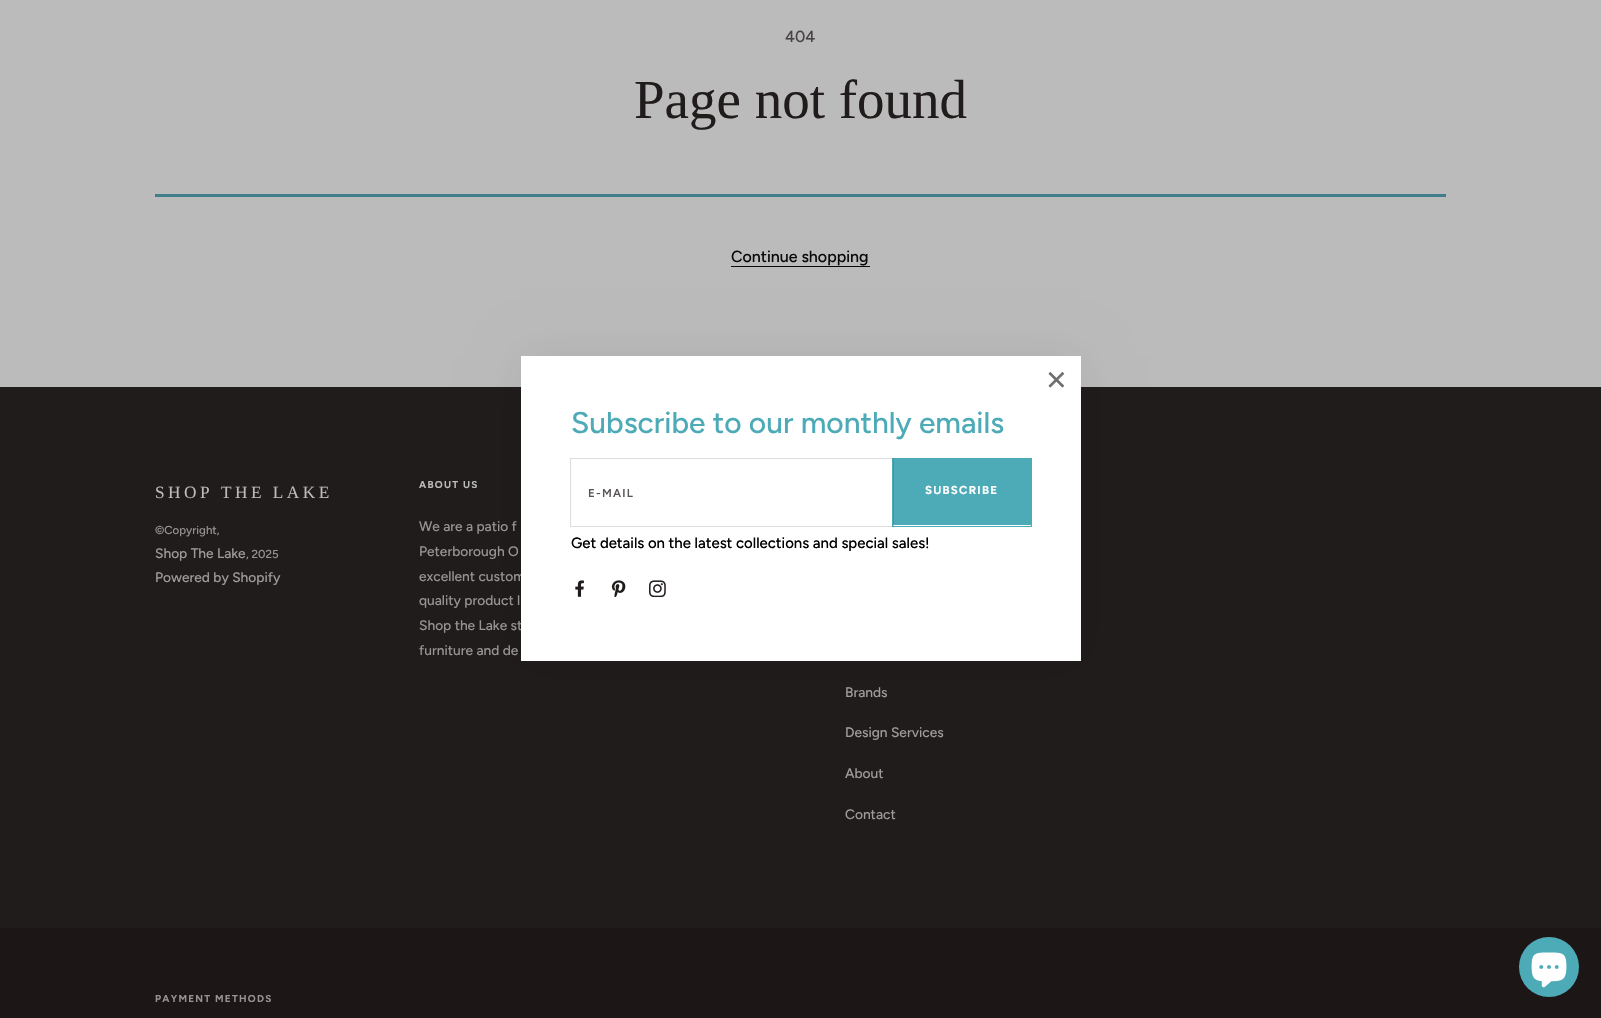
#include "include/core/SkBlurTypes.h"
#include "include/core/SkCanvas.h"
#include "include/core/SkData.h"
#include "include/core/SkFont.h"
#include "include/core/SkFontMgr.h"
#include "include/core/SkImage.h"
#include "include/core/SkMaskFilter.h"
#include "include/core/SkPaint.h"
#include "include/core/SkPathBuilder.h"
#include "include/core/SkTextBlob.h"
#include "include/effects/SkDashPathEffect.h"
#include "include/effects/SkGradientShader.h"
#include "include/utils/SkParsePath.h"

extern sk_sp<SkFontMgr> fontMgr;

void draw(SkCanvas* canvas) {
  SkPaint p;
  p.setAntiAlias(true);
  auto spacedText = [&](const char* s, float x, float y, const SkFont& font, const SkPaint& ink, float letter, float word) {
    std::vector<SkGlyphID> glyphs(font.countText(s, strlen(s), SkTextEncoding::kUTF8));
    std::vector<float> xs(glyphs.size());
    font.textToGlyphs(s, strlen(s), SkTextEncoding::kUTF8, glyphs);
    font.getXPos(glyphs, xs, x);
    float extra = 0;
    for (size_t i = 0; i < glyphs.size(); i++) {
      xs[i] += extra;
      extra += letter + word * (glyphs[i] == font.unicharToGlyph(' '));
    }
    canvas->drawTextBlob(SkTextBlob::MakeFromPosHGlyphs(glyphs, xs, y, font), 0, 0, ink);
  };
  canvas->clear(SkColorSetRGB(188, 187, 187));
  p.setColor(SkColorSetRGB(64, 127, 137));
  canvas->drawRect(SkRect::MakeLTRB(155, 194, 1446, 197), p);
  p.setColor(SkColorSetRGB(10, 8, 8));
  canvas->drawRect(SkRect::MakeLTRB(731, 266, 870, 267), p);
  p.setColor(SkColorSetRGB(33, 28, 28));
  canvas->drawRect(SkRect::MakeLTRB(0, 387, 1601, 928), p);
  p.setColor(SkColorSetARGB(18, 0, 0, 0));
  p.setMaskFilter(SkMaskFilter::MakeBlur(kNormal_SkBlurStyle, 23));
  canvas->drawRect(SkRect::MakeLTRB(521, 356, 1081, 661), p);
  p.setMaskFilter(nullptr);
  p.setColor(SkColorSetRGB(28, 22, 22));
  canvas->drawRect(SkRect::MakeLTRB(0, 928, 1601, 1018), p);
  p.setColor(SkColorSetRGB(77, 170, 183));
  canvas->drawCircle(1549, 967, 30, p);
  canvas->drawImageRect(SkImages::DeferredFromEncodedData(SkData::MakeFromFileName("images/5.png")), SkRect::MakeLTRB(1531, 952, 1567, 988), SkSamplingOptions());
  SkFont font1(fontMgr->matchFamilyStyle("Figtree", SkFontStyle(500, SkFontStyle::kNormal_Width, SkFontStyle::kUpright_Slant)), 16);
  font1.setSubpixel(true);
  p.setColor(SkColorSetRGB(72, 68, 68));
  canvas->drawString("404", 785, 42, font1, p);
  SkFont font2(fontMgr->matchFamilyStyle("Liberation Serif", SkFontStyle::Normal()), 55);
  font2.setSubpixel(true);
  p.setColor(SkColorSetRGB(33, 28, 28));
  canvas->drawString("Page not found", 634, 118, font2, p);
  p.setColor(SkColorSetRGB(10, 8, 8));
  canvas->drawString("Continue shopping", 731, 262, font1, p);
  SkFont font3(fontMgr->matchFamilyStyle("Liberation Serif", SkFontStyle::Normal()), 17.25f);
  font3.setSubpixel(true);
  p.setColor(SkColorSetRGB(188, 187, 187));
  spacedText("SHOP THE LAKE", 155, 498, font3, p, 3.5f, 0);
  SkFont font4(fontMgr->matchFamilyStyle("Figtree", SkFontStyle(500, SkFontStyle::kNormal_Width, SkFontStyle::kUpright_Slant)), 11.5f);
  font4.setSubpixel(true);
  p.setColor(SkColorSetRGB(150, 147, 147));
  canvas->drawString("©Copyright,", 155, 534, font4, p);
  SkFont font5(fontMgr->matchFamilyStyle("Figtree", SkFontStyle(500, SkFontStyle::kNormal_Width, SkFontStyle::kUpright_Slant)), 13.75f);
  font5.setSubpixel(true);
  p.setColor(SkColorSetRGB(158, 155, 155));
  canvas->drawString("Shop The Lake", 155, 558, font5, p);
  p.setColor(SkColorSetRGB(150, 147, 147));
  canvas->drawString(", 2025", 246, 558, font4, p);
  p.setColor(SkColorSetRGB(158, 155, 155));
  canvas->drawString("Powered by Shopify", 155, 582, font5, p);
  SkFont font6(fontMgr->matchFamilyStyle("Figtree", SkFontStyle::Bold()), 10);
  font6.setSubpixel(true);
  p.setColor(SkColorSetRGB(188, 187, 187));
  spacedText("ABOUT US", 419, 488, font6, p, 1.25f, 0);
  p.setColor(SkColorSetRGB(150, 147, 147));
  canvas->drawString("We are a patio f", 419, 531, font5, p);
  canvas->drawString("Peterborough O", 419, 556, font5, p);
  canvas->drawString("excellent custom", 419, 581, font5, p);
  canvas->drawString("quality product l", 419, 605, font5, p);
  canvas->drawString("Shop the Lake st", 419, 630, font5, p);
  p.setColor(SK_ColorWHITE);
  canvas->drawRect(SkRect::MakeLTRB(521, 356, 1081, 661), p);
  canvas->drawImageRect(SkImages::DeferredFromEncodedData(SkData::MakeFromFileName("images/1.png")), SkRect::MakeLTRB(1048, 371, 1065, 388), SkSamplingOptions());
  p.setStyle(SkPaint::kStroke_Style);
  p.setStrokeWidth(1);
  p.setColor(SkColorSetRGB(77, 170, 183));
  canvas->drawRect(SkRect::MakeLTRB(892.5f, 458.5f, 1031.5f, 526.5f), p);
  p.setStyle(SkPaint::kFill_Style);
  canvas->drawRect(SkRect::MakeLTRB(893, 459, 1031, 525), p);
  p.setStyle(SkPaint::kStroke_Style);
  p.setColor(SkColorSetARGB(38, 33, 28, 28));
  canvas->drawRect(SkRect::MakeLTRB(570.5f, 458.5f, 893.5f, 526.5f), p);
  SkFont font7(fontMgr->matchFamilyStyle("Figtree", SkFontStyle(600, SkFontStyle::kNormal_Width, SkFontStyle::kUpright_Slant)), 11.5f);
  font7.setSubpixel(true);
  p.setStyle(SkPaint::kFill_Style);
  p.setColor(SkColorSetRGB(89, 85, 85));
  spacedText("E-MAIL", 588, 497, font7, p, 1.25f, 0);
  SkFont font8(fontMgr->matchFamilyStyle("Figtree", SkFontStyle::Bold()), 11.5f);
  font8.setSubpixel(true);
  p.setColor(SK_ColorWHITE);
  spacedText("SUBSCRIBE", 925, 494, font8, p, 1.25f, 0);
  canvas->drawImageRect(SkImages::DeferredFromEncodedData(SkData::MakeFromFileName("images/4.png")), SkRect::MakeLTRB(649, 580, 666, 597), SkSamplingOptions());
  canvas->drawImageRect(SkImages::DeferredFromEncodedData(SkData::MakeFromFileName("images/3.png")), SkRect::MakeLTRB(611, 580, 626, 597), SkSamplingOptions());
  canvas->drawImageRect(SkImages::DeferredFromEncodedData(SkData::MakeFromFileName("images/2.png")), SkRect::MakeLTRB(575, 580, 584, 597), SkSamplingOptions());
  SkFont font9(fontMgr->matchFamilyStyle("Figtree", SkFontStyle(500, SkFontStyle::kNormal_Width, SkFontStyle::kUpright_Slant)), 14.95f);
  font9.setSubpixel(true);
  p.setColor(SK_ColorBLACK);
  canvas->drawString("Get details on the latest collections and special sales!", 571, 548, font9, p);
  SkFont font10(fontMgr->matchFamilyStyle("Figtree", SkFontStyle(500, SkFontStyle::kNormal_Width, SkFontStyle::kUpright_Slant)), 29.9f);
  font10.setSubpixel(true);
  p.setColor(SkColorSetRGB(77, 170, 183));
  canvas->drawString("Subscribe to our monthly emails", 571, 433, font10, p);
  p.setColor(SkColorSetRGB(150, 147, 147));
  canvas->drawString("furniture and de", 419, 655, font5, p);
  p.setColor(SkColorSetRGB(158, 155, 155));
  canvas->drawString("Brands", 845, 697, font5, p);
  canvas->drawString("Design Services", 845, 737, font5, p);
  canvas->drawString("About", 845, 778, font5, p);
  canvas->drawString("Contact", 845, 819, font5, p);
  p.setColor(SkColorSetRGB(150, 147, 147));
  spacedText("PAYMENT METHODS", 155, 1002, font6, p, 1.25f, 0);
}
